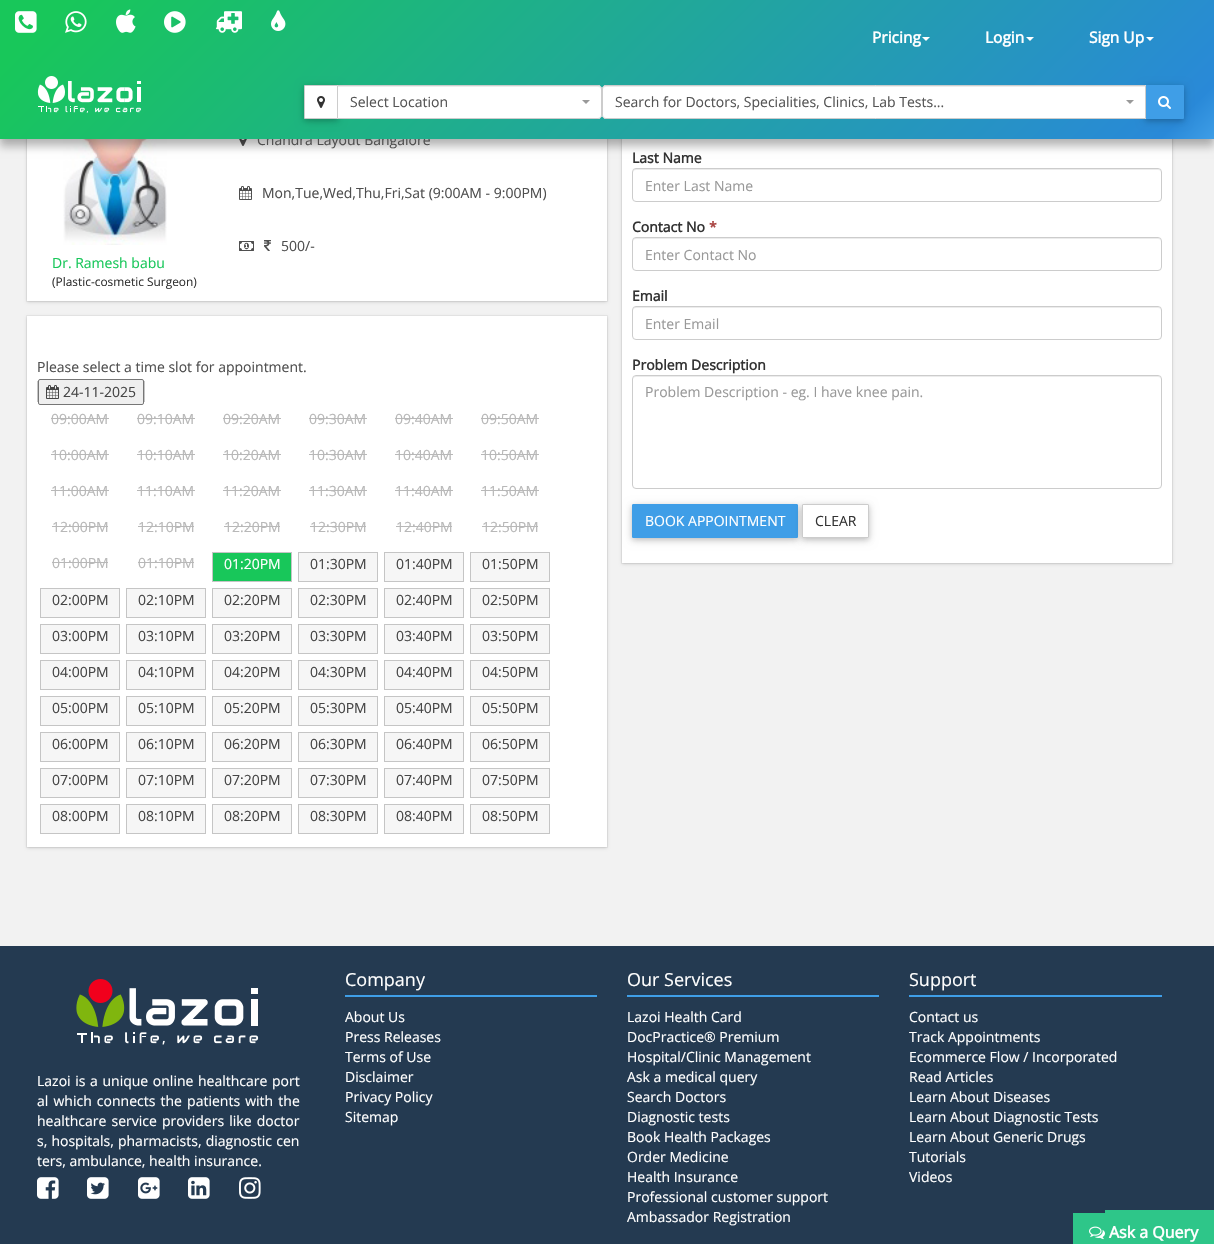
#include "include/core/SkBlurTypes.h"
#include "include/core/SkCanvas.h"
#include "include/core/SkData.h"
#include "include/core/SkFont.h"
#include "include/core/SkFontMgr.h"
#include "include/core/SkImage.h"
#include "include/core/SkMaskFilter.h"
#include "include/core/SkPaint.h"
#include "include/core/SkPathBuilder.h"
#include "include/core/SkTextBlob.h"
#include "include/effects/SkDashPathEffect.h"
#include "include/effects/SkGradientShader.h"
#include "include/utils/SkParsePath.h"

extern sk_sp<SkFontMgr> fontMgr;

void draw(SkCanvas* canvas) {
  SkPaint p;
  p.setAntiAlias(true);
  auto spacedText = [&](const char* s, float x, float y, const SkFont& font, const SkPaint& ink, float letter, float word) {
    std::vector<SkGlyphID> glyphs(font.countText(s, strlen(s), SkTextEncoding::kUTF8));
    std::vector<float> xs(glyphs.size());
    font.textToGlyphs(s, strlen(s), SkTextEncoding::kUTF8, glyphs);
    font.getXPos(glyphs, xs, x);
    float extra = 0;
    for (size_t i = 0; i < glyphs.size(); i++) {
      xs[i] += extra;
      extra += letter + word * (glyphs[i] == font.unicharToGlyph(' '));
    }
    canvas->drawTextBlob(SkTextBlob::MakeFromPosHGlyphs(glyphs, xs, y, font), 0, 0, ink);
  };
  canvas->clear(SkColorSetRGB(242, 242, 242));
  p.setStyle(SkPaint::kStroke_Style);
  p.setStrokeWidth(1);
  p.setColor(SkColorSetRGB(232, 232, 232));
  canvas->drawRect(SkRect::MakeLTRB(26.5f, 68.5f, 607.5f, 301.5f), p);
  p.setStyle(SkPaint::kFill_Style);
  p.setColor(SkColorSetARGB(41, 0, 0, 0));
  p.setMaskFilter(SkMaskFilter::MakeBlur(kNormal_SkBlurStyle, 1.5f));
  canvas->drawRect(SkRect::MakeLTRB(27, 70, 607, 302), p);
  p.setMaskFilter(nullptr);
  p.setColor(SK_ColorWHITE);
  canvas->drawRect(SkRect::MakeLTRB(27, 139, 607, 301), p);
  canvas->drawImageRect(SkImages::DeferredFromEncodedData(SkData::MakeFromFileName("images/10.png")), SkRect::MakeLTRB(239, 139, 247, 146), SkSamplingOptions());
  canvas->drawImageRect(SkImages::DeferredFromEncodedData(SkData::MakeFromFileName("images/14.png")), SkRect::MakeLTRB(63, 139, 167, 245), SkSamplingOptions());
  p.setStyle(SkPaint::kStroke_Style);
  p.setColor(SkColorSetRGB(232, 232, 232));
  canvas->drawRect(SkRect::MakeLTRB(621.5f, 68.5f, 1172.5f, 563.5f), p);
  p.setStyle(SkPaint::kFill_Style);
  p.setColor(SkColorSetARGB(41, 0, 0, 0));
  p.setMaskFilter(SkMaskFilter::MakeBlur(kNormal_SkBlurStyle, 1.5f));
  canvas->drawRect(SkRect::MakeLTRB(622, 70, 1172, 564), p);
  p.setMaskFilter(nullptr);
  p.setColor(SK_ColorWHITE);
  canvas->drawRect(SkRect::MakeLTRB(622, 139, 1172, 563), p);
  p.setColor(SkColorSetARGB(61, 0, 0, 0));
  p.setMaskFilter(SkMaskFilter::MakeBlur(kNormal_SkBlurStyle, 4));
  canvas->drawRect(SkRect::MakeLTRB(0, 8, 1214, 147), p);
  p.setMaskFilter(nullptr);
  p.setColor(SkColorSetARGB(31, 0, 0, 0));
  p.setMaskFilter(SkMaskFilter::MakeBlur(kNormal_SkBlurStyle, 4));
  canvas->drawRect(SkRect::MakeLTRB(0, 0, 1214, 139), p);
  p.setMaskFilter(nullptr);
  canvas->drawImageRect(SkImages::DeferredFromEncodedData(SkData::MakeFromFileName("images/11.png")), SkRect::MakeLTRB(239, 186, 252, 200), SkSamplingOptions());
  canvas->drawImageRect(SkImages::DeferredFromEncodedData(SkData::MakeFromFileName("images/12.png")), SkRect::MakeLTRB(239, 241, 254, 251), SkSamplingOptions());
  canvas->drawImageRect(SkImages::DeferredFromEncodedData(SkData::MakeFromFileName("images/13.png")), SkRect::MakeLTRB(264, 240, 271, 251), SkSamplingOptions());
  p.setStyle(SkPaint::kStroke_Style);
  p.setColor(SkColorSetRGB(232, 232, 232));
  canvas->drawRect(SkRect::MakeLTRB(26.5f, 315.5f, 607.5f, 847.5f), p);
  p.setStyle(SkPaint::kFill_Style);
  p.setColor(SkColorSetARGB(41, 0, 0, 0));
  p.setMaskFilter(SkMaskFilter::MakeBlur(kNormal_SkBlurStyle, 1.5f));
  canvas->drawRect(SkRect::MakeLTRB(27, 317, 607, 848), p);
  p.setMaskFilter(nullptr);
  p.setColor(SK_ColorWHITE);
  canvas->drawRect(SkRect::MakeLTRB(27, 316, 607, 847), p);
  p.setStyle(SkPaint::kStroke_Style);
  p.setColor(SkColorSetRGB(197, 197, 197));
  canvas->drawRect(SkRect::MakeLTRB(37.5f, 381.5f, 144.5f, 401.5f), p);
  p.setStyle(SkPaint::kFill_Style);
  p.setColor(SkColorSetRGB(239, 239, 239));
  canvas->drawRoundRect(SkRect::MakeLTRB(38.5f, 379.5f, 143.5f, 404.5f), 1.5f, 1.5f, p);
  p.setStyle(SkPaint::kStroke_Style);
  p.setColor(SkColorSetRGB(118, 118, 118));
  canvas->drawRoundRect(SkRect::MakeLTRB(38.5f, 379.5f, 143.5f, 404.5f), 1.5f, 1.5f, p);
  canvas->drawImageRect(SkImages::DeferredFromEncodedData(SkData::MakeFromFileName("images/15.png")), SkRect::MakeLTRB(46, 385, 59, 399), SkSamplingOptions());
  p.setStyle(SkPaint::kFill_Style);
  p.setColor(SkColorSetRGB(184, 184, 184));
  canvas->drawRect(SkRect::MakeLTRB(51, 418, 109, 419), p);
  canvas->drawRect(SkRect::MakeLTRB(137, 418, 195, 419), p);
  canvas->drawRect(SkRect::MakeLTRB(223, 418, 281, 419), p);
  canvas->drawRect(SkRect::MakeLTRB(309, 418, 367, 419), p);
  canvas->drawRect(SkRect::MakeLTRB(395, 418, 453, 419), p);
  canvas->drawRect(SkRect::MakeLTRB(481, 418, 539, 419), p);
  canvas->drawRect(SkRect::MakeLTRB(51, 454, 109, 455), p);
  canvas->drawRect(SkRect::MakeLTRB(137, 454, 195, 455), p);
  canvas->drawRect(SkRect::MakeLTRB(223, 454, 281, 455), p);
  canvas->drawRect(SkRect::MakeLTRB(309, 454, 367, 455), p);
  canvas->drawRect(SkRect::MakeLTRB(395, 454, 453, 455), p);
  canvas->drawRect(SkRect::MakeLTRB(481, 454, 539, 455), p);
  canvas->drawRect(SkRect::MakeLTRB(51, 490, 109, 491), p);
  canvas->drawRect(SkRect::MakeLTRB(137, 490, 195, 491), p);
  canvas->drawRect(SkRect::MakeLTRB(223, 490, 281, 491), p);
  canvas->drawRect(SkRect::MakeLTRB(309, 490, 367, 491), p);
  canvas->drawRect(SkRect::MakeLTRB(395, 490, 453, 491), p);
  canvas->drawRect(SkRect::MakeLTRB(481, 490, 539, 491), p);
  canvas->drawRect(SkRect::MakeLTRB(52, 526, 108, 527), p);
  canvas->drawRect(SkRect::MakeLTRB(138, 526, 194, 527), p);
  canvas->drawRect(SkRect::MakeLTRB(224, 526, 280, 527), p);
  canvas->drawRect(SkRect::MakeLTRB(310, 526, 366, 527), p);
  canvas->drawRect(SkRect::MakeLTRB(396, 526, 452, 527), p);
  canvas->drawRect(SkRect::MakeLTRB(482, 526, 538, 527), p);
  canvas->drawRect(SkRect::MakeLTRB(52, 562, 108, 563), p);
  canvas->drawRect(SkRect::MakeLTRB(138, 562, 194, 563), p);
  p.setColor(SkColorSetRGB(24, 199, 90));
  canvas->drawRect(SkRect::MakeLTRB(212.5f, 552.5f, 291.5f, 581.5f), p);
  p.setStyle(SkPaint::kStroke_Style);
  p.setColor(SkColorSetRGB(197, 197, 197));
  canvas->drawRect(SkRect::MakeLTRB(212.5f, 552.5f, 291.5f, 581.5f), p);
  p.setStyle(SkPaint::kFill_Style);
  p.setColor(SkColorSetRGB(246, 246, 246));
  canvas->drawRect(SkRect::MakeLTRB(298.5f, 552.5f, 377.5f, 581.5f), p);
  p.setStyle(SkPaint::kStroke_Style);
  p.setColor(SkColorSetRGB(197, 197, 197));
  canvas->drawRect(SkRect::MakeLTRB(298.5f, 552.5f, 377.5f, 581.5f), p);
  p.setStyle(SkPaint::kFill_Style);
  p.setColor(SkColorSetRGB(246, 246, 246));
  canvas->drawRect(SkRect::MakeLTRB(384.5f, 552.5f, 463.5f, 581.5f), p);
  p.setStyle(SkPaint::kStroke_Style);
  p.setColor(SkColorSetRGB(197, 197, 197));
  canvas->drawRect(SkRect::MakeLTRB(384.5f, 552.5f, 463.5f, 581.5f), p);
  p.setStyle(SkPaint::kFill_Style);
  p.setColor(SkColorSetRGB(246, 246, 246));
  canvas->drawRect(SkRect::MakeLTRB(470.5f, 552.5f, 549.5f, 581.5f), p);
  p.setStyle(SkPaint::kStroke_Style);
  p.setColor(SkColorSetRGB(197, 197, 197));
  canvas->drawRect(SkRect::MakeLTRB(470.5f, 552.5f, 549.5f, 581.5f), p);
  p.setStyle(SkPaint::kFill_Style);
  p.setColor(SkColorSetRGB(246, 246, 246));
  canvas->drawRect(SkRect::MakeLTRB(40.5f, 588.5f, 119.5f, 617.5f), p);
  p.setStyle(SkPaint::kStroke_Style);
  p.setColor(SkColorSetRGB(197, 197, 197));
  canvas->drawRect(SkRect::MakeLTRB(40.5f, 588.5f, 119.5f, 617.5f), p);
  p.setStyle(SkPaint::kFill_Style);
  p.setColor(SkColorSetRGB(246, 246, 246));
  canvas->drawRect(SkRect::MakeLTRB(126.5f, 588.5f, 205.5f, 617.5f), p);
  p.setStyle(SkPaint::kStroke_Style);
  p.setColor(SkColorSetRGB(197, 197, 197));
  canvas->drawRect(SkRect::MakeLTRB(126.5f, 588.5f, 205.5f, 617.5f), p);
  p.setStyle(SkPaint::kFill_Style);
  p.setColor(SkColorSetRGB(246, 246, 246));
  canvas->drawRect(SkRect::MakeLTRB(212.5f, 588.5f, 291.5f, 617.5f), p);
  p.setStyle(SkPaint::kStroke_Style);
  p.setColor(SkColorSetRGB(197, 197, 197));
  canvas->drawRect(SkRect::MakeLTRB(212.5f, 588.5f, 291.5f, 617.5f), p);
  p.setStyle(SkPaint::kFill_Style);
  p.setColor(SkColorSetRGB(246, 246, 246));
  canvas->drawRect(SkRect::MakeLTRB(298.5f, 588.5f, 377.5f, 617.5f), p);
  p.setStyle(SkPaint::kStroke_Style);
  p.setColor(SkColorSetRGB(197, 197, 197));
  canvas->drawRect(SkRect::MakeLTRB(298.5f, 588.5f, 377.5f, 617.5f), p);
  p.setStyle(SkPaint::kFill_Style);
  p.setColor(SkColorSetRGB(246, 246, 246));
  canvas->drawRect(SkRect::MakeLTRB(384.5f, 588.5f, 463.5f, 617.5f), p);
  p.setStyle(SkPaint::kStroke_Style);
  p.setColor(SkColorSetRGB(197, 197, 197));
  canvas->drawRect(SkRect::MakeLTRB(384.5f, 588.5f, 463.5f, 617.5f), p);
  p.setStyle(SkPaint::kFill_Style);
  p.setColor(SkColorSetRGB(246, 246, 246));
  canvas->drawRect(SkRect::MakeLTRB(470.5f, 588.5f, 549.5f, 617.5f), p);
  p.setStyle(SkPaint::kStroke_Style);
  p.setColor(SkColorSetRGB(197, 197, 197));
  canvas->drawRect(SkRect::MakeLTRB(470.5f, 588.5f, 549.5f, 617.5f), p);
  p.setStyle(SkPaint::kFill_Style);
  p.setColor(SkColorSetRGB(246, 246, 246));
  canvas->drawRect(SkRect::MakeLTRB(40.5f, 624.5f, 119.5f, 653.5f), p);
  p.setStyle(SkPaint::kStroke_Style);
  p.setColor(SkColorSetRGB(197, 197, 197));
  canvas->drawRect(SkRect::MakeLTRB(40.5f, 624.5f, 119.5f, 653.5f), p);
  p.setStyle(SkPaint::kFill_Style);
  p.setColor(SkColorSetRGB(246, 246, 246));
  canvas->drawRect(SkRect::MakeLTRB(126.5f, 624.5f, 205.5f, 653.5f), p);
  p.setStyle(SkPaint::kStroke_Style);
  p.setColor(SkColorSetRGB(197, 197, 197));
  canvas->drawRect(SkRect::MakeLTRB(126.5f, 624.5f, 205.5f, 653.5f), p);
  p.setStyle(SkPaint::kFill_Style);
  p.setColor(SkColorSetRGB(246, 246, 246));
  canvas->drawRect(SkRect::MakeLTRB(212.5f, 624.5f, 291.5f, 653.5f), p);
  p.setStyle(SkPaint::kStroke_Style);
  p.setColor(SkColorSetRGB(197, 197, 197));
  canvas->drawRect(SkRect::MakeLTRB(212.5f, 624.5f, 291.5f, 653.5f), p);
  p.setStyle(SkPaint::kFill_Style);
  p.setColor(SkColorSetRGB(246, 246, 246));
  canvas->drawRect(SkRect::MakeLTRB(298.5f, 624.5f, 377.5f, 653.5f), p);
  p.setStyle(SkPaint::kStroke_Style);
  p.setColor(SkColorSetRGB(197, 197, 197));
  canvas->drawRect(SkRect::MakeLTRB(298.5f, 624.5f, 377.5f, 653.5f), p);
  p.setStyle(SkPaint::kFill_Style);
  p.setColor(SkColorSetRGB(246, 246, 246));
  canvas->drawRect(SkRect::MakeLTRB(384.5f, 624.5f, 463.5f, 653.5f), p);
  p.setStyle(SkPaint::kStroke_Style);
  p.setColor(SkColorSetRGB(197, 197, 197));
  canvas->drawRect(SkRect::MakeLTRB(384.5f, 624.5f, 463.5f, 653.5f), p);
  p.setStyle(SkPaint::kFill_Style);
  p.setColor(SkColorSetRGB(246, 246, 246));
  canvas->drawRect(SkRect::MakeLTRB(470.5f, 624.5f, 549.5f, 653.5f), p);
  p.setStyle(SkPaint::kStroke_Style);
  p.setColor(SkColorSetRGB(197, 197, 197));
  canvas->drawRect(SkRect::MakeLTRB(470.5f, 624.5f, 549.5f, 653.5f), p);
  p.setStyle(SkPaint::kFill_Style);
  p.setColor(SkColorSetRGB(246, 246, 246));
  canvas->drawRect(SkRect::MakeLTRB(40.5f, 660.5f, 119.5f, 689.5f), p);
  p.setStyle(SkPaint::kStroke_Style);
  p.setColor(SkColorSetRGB(197, 197, 197));
  canvas->drawRect(SkRect::MakeLTRB(40.5f, 660.5f, 119.5f, 689.5f), p);
  p.setStyle(SkPaint::kFill_Style);
  p.setColor(SkColorSetRGB(246, 246, 246));
  canvas->drawRect(SkRect::MakeLTRB(126.5f, 660.5f, 205.5f, 689.5f), p);
  p.setStyle(SkPaint::kStroke_Style);
  p.setColor(SkColorSetRGB(197, 197, 197));
  canvas->drawRect(SkRect::MakeLTRB(126.5f, 660.5f, 205.5f, 689.5f), p);
  p.setStyle(SkPaint::kFill_Style);
  p.setColor(SkColorSetRGB(246, 246, 246));
  canvas->drawRect(SkRect::MakeLTRB(212.5f, 660.5f, 291.5f, 689.5f), p);
  p.setStyle(SkPaint::kStroke_Style);
  p.setColor(SkColorSetRGB(197, 197, 197));
  canvas->drawRect(SkRect::MakeLTRB(212.5f, 660.5f, 291.5f, 689.5f), p);
  p.setStyle(SkPaint::kFill_Style);
  p.setColor(SkColorSetRGB(246, 246, 246));
  canvas->drawRect(SkRect::MakeLTRB(298.5f, 660.5f, 377.5f, 689.5f), p);
  p.setStyle(SkPaint::kStroke_Style);
  p.setColor(SkColorSetRGB(197, 197, 197));
  canvas->drawRect(SkRect::MakeLTRB(298.5f, 660.5f, 377.5f, 689.5f), p);
  p.setStyle(SkPaint::kFill_Style);
  p.setColor(SkColorSetRGB(246, 246, 246));
  canvas->drawRect(SkRect::MakeLTRB(384.5f, 660.5f, 463.5f, 689.5f), p);
  p.setStyle(SkPaint::kStroke_Style);
  p.setColor(SkColorSetRGB(197, 197, 197));
  canvas->drawRect(SkRect::MakeLTRB(384.5f, 660.5f, 463.5f, 689.5f), p);
  p.setStyle(SkPaint::kFill_Style);
  p.setColor(SkColorSetRGB(246, 246, 246));
  canvas->drawRect(SkRect::MakeLTRB(470.5f, 660.5f, 549.5f, 689.5f), p);
  p.setStyle(SkPaint::kStroke_Style);
  p.setColor(SkColorSetRGB(197, 197, 197));
  canvas->drawRect(SkRect::MakeLTRB(470.5f, 660.5f, 549.5f, 689.5f), p);
  p.setStyle(SkPaint::kFill_Style);
  p.setColor(SkColorSetRGB(246, 246, 246));
  canvas->drawRect(SkRect::MakeLTRB(40.5f, 696.5f, 119.5f, 725.5f), p);
  p.setStyle(SkPaint::kStroke_Style);
  p.setColor(SkColorSetRGB(197, 197, 197));
  canvas->drawRect(SkRect::MakeLTRB(40.5f, 696.5f, 119.5f, 725.5f), p);
  p.setStyle(SkPaint::kFill_Style);
  p.setColor(SkColorSetRGB(246, 246, 246));
  canvas->drawRect(SkRect::MakeLTRB(126.5f, 696.5f, 205.5f, 725.5f), p);
  p.setStyle(SkPaint::kStroke_Style);
  p.setColor(SkColorSetRGB(197, 197, 197));
  canvas->drawRect(SkRect::MakeLTRB(126.5f, 696.5f, 205.5f, 725.5f), p);
  p.setStyle(SkPaint::kFill_Style);
  p.setColor(SkColorSetRGB(246, 246, 246));
  canvas->drawRect(SkRect::MakeLTRB(212.5f, 696.5f, 291.5f, 725.5f), p);
  p.setStyle(SkPaint::kStroke_Style);
  p.setColor(SkColorSetRGB(197, 197, 197));
  canvas->drawRect(SkRect::MakeLTRB(212.5f, 696.5f, 291.5f, 725.5f), p);
  p.setStyle(SkPaint::kFill_Style);
  p.setColor(SkColorSetRGB(246, 246, 246));
  canvas->drawRect(SkRect::MakeLTRB(298.5f, 696.5f, 377.5f, 725.5f), p);
  p.setStyle(SkPaint::kStroke_Style);
  p.setColor(SkColorSetRGB(197, 197, 197));
  canvas->drawRect(SkRect::MakeLTRB(298.5f, 696.5f, 377.5f, 725.5f), p);
  p.setStyle(SkPaint::kFill_Style);
  p.setColor(SkColorSetRGB(246, 246, 246));
  canvas->drawRect(SkRect::MakeLTRB(384.5f, 696.5f, 463.5f, 725.5f), p);
  p.setStyle(SkPaint::kStroke_Style);
  p.setColor(SkColorSetRGB(197, 197, 197));
  canvas->drawRect(SkRect::MakeLTRB(384.5f, 696.5f, 463.5f, 725.5f), p);
  p.setStyle(SkPaint::kFill_Style);
  p.setColor(SkColorSetRGB(246, 246, 246));
  canvas->drawRect(SkRect::MakeLTRB(470.5f, 696.5f, 549.5f, 725.5f), p);
  p.setStyle(SkPaint::kStroke_Style);
  p.setColor(SkColorSetRGB(197, 197, 197));
  canvas->drawRect(SkRect::MakeLTRB(470.5f, 696.5f, 549.5f, 725.5f), p);
  p.setStyle(SkPaint::kFill_Style);
  p.setColor(SkColorSetRGB(246, 246, 246));
  canvas->drawRect(SkRect::MakeLTRB(40.5f, 732.5f, 119.5f, 761.5f), p);
  p.setStyle(SkPaint::kStroke_Style);
  p.setColor(SkColorSetRGB(197, 197, 197));
  canvas->drawRect(SkRect::MakeLTRB(40.5f, 732.5f, 119.5f, 761.5f), p);
  p.setStyle(SkPaint::kFill_Style);
  p.setColor(SkColorSetRGB(246, 246, 246));
  canvas->drawRect(SkRect::MakeLTRB(126.5f, 732.5f, 205.5f, 761.5f), p);
  p.setStyle(SkPaint::kStroke_Style);
  p.setColor(SkColorSetRGB(197, 197, 197));
  canvas->drawRect(SkRect::MakeLTRB(126.5f, 732.5f, 205.5f, 761.5f), p);
  p.setStyle(SkPaint::kFill_Style);
  p.setColor(SkColorSetRGB(246, 246, 246));
  canvas->drawRect(SkRect::MakeLTRB(212.5f, 732.5f, 291.5f, 761.5f), p);
  p.setStyle(SkPaint::kStroke_Style);
  p.setColor(SkColorSetRGB(197, 197, 197));
  canvas->drawRect(SkRect::MakeLTRB(212.5f, 732.5f, 291.5f, 761.5f), p);
  p.setStyle(SkPaint::kFill_Style);
  p.setColor(SkColorSetRGB(246, 246, 246));
  canvas->drawRect(SkRect::MakeLTRB(298.5f, 732.5f, 377.5f, 761.5f), p);
  p.setStyle(SkPaint::kStroke_Style);
  p.setColor(SkColorSetRGB(197, 197, 197));
  canvas->drawRect(SkRect::MakeLTRB(298.5f, 732.5f, 377.5f, 761.5f), p);
  p.setStyle(SkPaint::kFill_Style);
  p.setColor(SkColorSetRGB(246, 246, 246));
  canvas->drawRect(SkRect::MakeLTRB(384.5f, 732.5f, 463.5f, 761.5f), p);
  p.setStyle(SkPaint::kStroke_Style);
  p.setColor(SkColorSetRGB(197, 197, 197));
  canvas->drawRect(SkRect::MakeLTRB(384.5f, 732.5f, 463.5f, 761.5f), p);
  p.setStyle(SkPaint::kFill_Style);
  p.setColor(SkColorSetRGB(246, 246, 246));
  canvas->drawRect(SkRect::MakeLTRB(470.5f, 732.5f, 549.5f, 761.5f), p);
  p.setStyle(SkPaint::kStroke_Style);
  p.setColor(SkColorSetRGB(197, 197, 197));
  canvas->drawRect(SkRect::MakeLTRB(470.5f, 732.5f, 549.5f, 761.5f), p);
  p.setStyle(SkPaint::kFill_Style);
  p.setColor(SkColorSetRGB(246, 246, 246));
  canvas->drawRect(SkRect::MakeLTRB(40.5f, 768.5f, 119.5f, 797.5f), p);
  p.setStyle(SkPaint::kStroke_Style);
  p.setColor(SkColorSetRGB(197, 197, 197));
  canvas->drawRect(SkRect::MakeLTRB(40.5f, 768.5f, 119.5f, 797.5f), p);
  p.setStyle(SkPaint::kFill_Style);
  p.setColor(SkColorSetRGB(246, 246, 246));
  canvas->drawRect(SkRect::MakeLTRB(126.5f, 768.5f, 205.5f, 797.5f), p);
  p.setStyle(SkPaint::kStroke_Style);
  p.setColor(SkColorSetRGB(197, 197, 197));
  canvas->drawRect(SkRect::MakeLTRB(126.5f, 768.5f, 205.5f, 797.5f), p);
  p.setStyle(SkPaint::kFill_Style);
  p.setColor(SkColorSetRGB(246, 246, 246));
  canvas->drawRect(SkRect::MakeLTRB(212.5f, 768.5f, 291.5f, 797.5f), p);
  p.setStyle(SkPaint::kStroke_Style);
  p.setColor(SkColorSetRGB(197, 197, 197));
  canvas->drawRect(SkRect::MakeLTRB(212.5f, 768.5f, 291.5f, 797.5f), p);
  p.setStyle(SkPaint::kFill_Style);
  p.setColor(SkColorSetRGB(246, 246, 246));
  canvas->drawRect(SkRect::MakeLTRB(298.5f, 768.5f, 377.5f, 797.5f), p);
  p.setStyle(SkPaint::kStroke_Style);
  p.setColor(SkColorSetRGB(197, 197, 197));
  canvas->drawRect(SkRect::MakeLTRB(298.5f, 768.5f, 377.5f, 797.5f), p);
  p.setStyle(SkPaint::kFill_Style);
  p.setColor(SkColorSetRGB(246, 246, 246));
  canvas->drawRect(SkRect::MakeLTRB(384.5f, 768.5f, 463.5f, 797.5f), p);
  p.setStyle(SkPaint::kStroke_Style);
  p.setColor(SkColorSetRGB(197, 197, 197));
  canvas->drawRect(SkRect::MakeLTRB(384.5f, 768.5f, 463.5f, 797.5f), p);
  p.setStyle(SkPaint::kFill_Style);
  p.setColor(SkColorSetRGB(246, 246, 246));
  canvas->drawRect(SkRect::MakeLTRB(470.5f, 768.5f, 549.5f, 797.5f), p);
  p.setStyle(SkPaint::kStroke_Style);
  p.setColor(SkColorSetRGB(197, 197, 197));
  canvas->drawRect(SkRect::MakeLTRB(470.5f, 768.5f, 549.5f, 797.5f), p);
  p.setStyle(SkPaint::kFill_Style);
  p.setColor(SkColorSetRGB(246, 246, 246));
  canvas->drawRect(SkRect::MakeLTRB(40.5f, 804.5f, 119.5f, 833.5f), p);
  p.setStyle(SkPaint::kStroke_Style);
  p.setColor(SkColorSetRGB(197, 197, 197));
  canvas->drawRect(SkRect::MakeLTRB(40.5f, 804.5f, 119.5f, 833.5f), p);
  p.setStyle(SkPaint::kFill_Style);
  p.setColor(SkColorSetRGB(246, 246, 246));
  canvas->drawRect(SkRect::MakeLTRB(126.5f, 804.5f, 205.5f, 833.5f), p);
  p.setStyle(SkPaint::kStroke_Style);
  p.setColor(SkColorSetRGB(197, 197, 197));
  canvas->drawRect(SkRect::MakeLTRB(126.5f, 804.5f, 205.5f, 833.5f), p);
  p.setStyle(SkPaint::kFill_Style);
  p.setColor(SkColorSetRGB(246, 246, 246));
  canvas->drawRect(SkRect::MakeLTRB(212.5f, 804.5f, 291.5f, 833.5f), p);
  p.setStyle(SkPaint::kStroke_Style);
  p.setColor(SkColorSetRGB(197, 197, 197));
  canvas->drawRect(SkRect::MakeLTRB(212.5f, 804.5f, 291.5f, 833.5f), p);
  p.setStyle(SkPaint::kFill_Style);
  p.setColor(SkColorSetRGB(246, 246, 246));
  canvas->drawRect(SkRect::MakeLTRB(298.5f, 804.5f, 377.5f, 833.5f), p);
  p.setStyle(SkPaint::kStroke_Style);
  p.setColor(SkColorSetRGB(197, 197, 197));
  canvas->drawRect(SkRect::MakeLTRB(298.5f, 804.5f, 377.5f, 833.5f), p);
  p.setStyle(SkPaint::kFill_Style);
  p.setColor(SkColorSetRGB(246, 246, 246));
  canvas->drawRect(SkRect::MakeLTRB(384.5f, 804.5f, 463.5f, 833.5f), p);
  p.setStyle(SkPaint::kStroke_Style);
  p.setColor(SkColorSetRGB(197, 197, 197));
  canvas->drawRect(SkRect::MakeLTRB(384.5f, 804.5f, 463.5f, 833.5f), p);
  p.setStyle(SkPaint::kFill_Style);
  p.setColor(SkColorSetRGB(246, 246, 246));
  canvas->drawRect(SkRect::MakeLTRB(470.5f, 804.5f, 549.5f, 833.5f), p);
  p.setStyle(SkPaint::kStroke_Style);
  p.setColor(SkColorSetRGB(197, 197, 197));
  canvas->drawRect(SkRect::MakeLTRB(470.5f, 804.5f, 549.5f, 833.5f), p);
  p.setStyle(SkPaint::kFill_Style);
  p.setColor(SkColorSetRGB(236, 236, 236));
  canvas->drawPath(SkPathBuilder().moveTo(636, 170).lineTo(1158, 170).cubicTo(1160, 170, 1161, 171, 1161, 173).lineTo(1160, 170).lineTo(1158, 169).lineTo(636, 169).cubicTo(634, 169, 633, 171, 633, 173).cubicTo(633, 171, 634, 170, 636, 170).close().detach(), p);
  p.setStyle(SkPaint::kStroke_Style);
  p.setColor(SkColorSetRGB(204, 204, 204));
  canvas->drawRoundRect(SkRect::MakeLTRB(632.5f, 168.5f, 1161.5f, 201.5f), 3.5f, 3.5f, p);
  p.setStyle(SkPaint::kFill_Style);
  p.setColor(SkColorSetRGB(236, 236, 236));
  canvas->drawPath(SkPathBuilder().moveTo(636, 239).lineTo(1158, 239).cubicTo(1160, 239, 1161, 240, 1161, 242).lineTo(1160, 239).lineTo(1158, 238).lineTo(636, 238).cubicTo(634, 238, 633, 240, 633, 242).cubicTo(633, 240, 634, 239, 636, 239).close().detach(), p);
  p.setStyle(SkPaint::kStroke_Style);
  p.setColor(SkColorSetRGB(204, 204, 204));
  canvas->drawRoundRect(SkRect::MakeLTRB(632.5f, 237.5f, 1161.5f, 270.5f), 3.5f, 3.5f, p);
  p.setStyle(SkPaint::kFill_Style);
  p.setColor(SkColorSetRGB(236, 236, 236));
  canvas->drawPath(SkPathBuilder().moveTo(636, 308).lineTo(1158, 308).cubicTo(1160, 308, 1161, 309, 1161, 311).lineTo(1160, 308).lineTo(1158, 307).lineTo(636, 307).cubicTo(634, 307, 633, 309, 633, 311).cubicTo(633, 309, 634, 308, 636, 308).close().detach(), p);
  p.setStyle(SkPaint::kStroke_Style);
  p.setColor(SkColorSetRGB(204, 204, 204));
  canvas->drawRoundRect(SkRect::MakeLTRB(632.5f, 306.5f, 1161.5f, 339.5f), 3.5f, 3.5f, p);
  p.setStyle(SkPaint::kFill_Style);
  p.setColor(SkColorSetRGB(236, 236, 236));
  canvas->drawPath(SkPathBuilder().moveTo(636, 377).lineTo(1158, 377).cubicTo(1160, 377, 1161, 378, 1161, 380).lineTo(1160, 377).lineTo(1158, 376).lineTo(636, 376).cubicTo(634, 376, 633, 378, 633, 380).cubicTo(633, 378, 634, 377, 636, 377).close().detach(), p);
  p.setStyle(SkPaint::kStroke_Style);
  p.setColor(SkColorSetRGB(204, 204, 204));
  canvas->drawRoundRect(SkRect::MakeLTRB(632.5f, 375.5f, 1161.5f, 488.5f), 3.5f, 3.5f, p);
  p.setStyle(SkPaint::kFill_Style);
  p.setColor(SkColorSetARGB(31, 0, 0, 0));
  p.setMaskFilter(SkMaskFilter::MakeBlur(kNormal_SkBlurStyle, 5));
  canvas->drawRoundRect(SkRect::MakeLTRB(632, 506, 798, 540), 1, 1, p);
  p.setMaskFilter(nullptr);
  p.setColor(SkColorSetARGB(41, 0, 0, 0));
  p.setMaskFilter(SkMaskFilter::MakeBlur(kNormal_SkBlurStyle, 2.5f));
  canvas->drawRoundRect(SkRect::MakeLTRB(632, 506, 798, 540), 1, 1, p);
  p.setMaskFilter(nullptr);
  p.setColor(SkColorSetRGB(63, 158, 231));
  canvas->drawRoundRect(SkRect::MakeLTRB(632.5f, 504.5f, 797.5f, 537.5f), 0.5f, 0.5f, p);
  p.setStyle(SkPaint::kStroke_Style);
  canvas->drawRoundRect(SkRect::MakeLTRB(632.5f, 504.5f, 797.5f, 537.5f), 0.5f, 0.5f, p);
  p.setStyle(SkPaint::kFill_Style);
  p.setColor(SkColorSetARGB(31, 0, 0, 0));
  p.setMaskFilter(SkMaskFilter::MakeBlur(kNormal_SkBlurStyle, 5));
  canvas->drawRoundRect(SkRect::MakeLTRB(802, 506, 869, 540), 1, 1, p);
  p.setMaskFilter(nullptr);
  p.setColor(SkColorSetARGB(41, 0, 0, 0));
  p.setMaskFilter(SkMaskFilter::MakeBlur(kNormal_SkBlurStyle, 2.5f));
  canvas->drawRoundRect(SkRect::MakeLTRB(802, 506, 869, 540), 1, 1, p);
  p.setMaskFilter(nullptr);
  p.setColor(SK_ColorWHITE);
  canvas->drawRoundRect(SkRect::MakeLTRB(802.5f, 504.5f, 868.5f, 537.5f), 0.5f, 0.5f, p);
  p.setStyle(SkPaint::kStroke_Style);
  p.setColor(SkColorSetRGB(204, 204, 204));
  canvas->drawRoundRect(SkRect::MakeLTRB(802.5f, 504.5f, 868.5f, 537.5f), 0.5f, 0.5f, p);
  p.setStyle(SkPaint::kFill_Style);
  p.setColor(SkColorSetRGB(36, 58, 81));
  canvas->drawRect(SkRect::MakeLTRB(0, 946, 1214, 1244), p);
  canvas->drawImageRect(SkImages::DeferredFromEncodedData(SkData::MakeFromFileName("images/16.png")), SkRect::MakeLTRB(76, 979, 259, 1045), SkSamplingOptions());
  canvas->drawImageRect(SkImages::DeferredFromEncodedData(SkData::MakeFromFileName("images/17.png")), SkRect::MakeLTRB(37, 1177, 59, 1199), SkSamplingOptions());
  canvas->drawImageRect(SkImages::DeferredFromEncodedData(SkData::MakeFromFileName("images/18.png")), SkRect::MakeLTRB(87, 1177, 109, 1199), SkSamplingOptions());
  canvas->drawImageRect(SkImages::DeferredFromEncodedData(SkData::MakeFromFileName("images/19.png")), SkRect::MakeLTRB(138, 1177, 160, 1199), SkSamplingOptions());
  canvas->drawImageRect(SkImages::DeferredFromEncodedData(SkData::MakeFromFileName("images/20.png")), SkRect::MakeLTRB(188, 1177, 210, 1199), SkSamplingOptions());
  canvas->drawImageRect(SkImages::DeferredFromEncodedData(SkData::MakeFromFileName("images/21.png")), SkRect::MakeLTRB(239, 1177, 261, 1199), SkSamplingOptions());
  p.setColor(SkColorSetRGB(63, 158, 231));
  canvas->drawRect(SkRect::MakeLTRB(345, 995, 597, 997), p);
  canvas->drawRect(SkRect::MakeLTRB(627, 995, 879, 997), p);
  canvas->drawRect(SkRect::MakeLTRB(909, 995, 1162, 997), p);
  p.setColor(SkColorSetRGB(46, 198, 137));
  canvas->drawRect(SkRect::MakeLTRB(1073, 1213, 1105, 1244), p);
  canvas->drawRect(SkRect::MakeLTRB(1105, 1210, 1214, 1244), p);
  canvas->drawImageRect(SkImages::DeferredFromEncodedData(SkData::MakeFromFileName("images/22.png")), SkRect::MakeLTRB(1089, 1226, 1105, 1240), SkSamplingOptions());
  SkFont font1(fontMgr->matchFamilyStyle("Open Sans", SkFontStyle::Normal()), 14);
  font1.setSubpixel(true);
  p.setColor(SkColorSetRGB(79, 79, 79));
  canvas->drawString("Chandra Layout Bangalore", 257, 145, font1, p);
  {
    const SkColor colors[] = {SkColorSetRGB(24, 199, 90), SkColorSetRGB(24, 199, 90), SkColorSetRGB(41, 137, 216), SkColorSetRGB(63, 158, 231), SkColorSetRGB(110, 171, 204), SkColorSetRGB(110, 171, 204), SkColorSetRGB(41, 137, 216)};
    const float stops[] = {0, 0.05f, 0.95f, 0.99f, 0.99f, 1, 1};
    const SkPoint ends[] = {{269, -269}, {952, 415}};
    p.setShader(SkGradientShader::MakeLinear(ends, colors, stops, 7, SkTileMode::kClamp));
    p.setAlpha(255);
  }
  canvas->drawRect(SkRect::MakeLTRB(0, 0, 1214, 139), p);
  p.setShader(nullptr);
  p.setColor(SkColorSetARGB(41, 0, 0, 0));
  p.setMaskFilter(SkMaskFilter::MakeBlur(kNormal_SkBlurStyle, 2.5f));
  canvas->drawRoundRect(SkRect::MakeLTRB(1145, 87, 1184, 121), 1, 1, p);
  p.setMaskFilter(nullptr);
  p.setColor(SkColorSetARGB(31, 0, 0, 0));
  p.setMaskFilter(SkMaskFilter::MakeBlur(kNormal_SkBlurStyle, 5));
  canvas->drawRoundRect(SkRect::MakeLTRB(1145, 87, 1184, 121), 1, 1, p);
  p.setMaskFilter(nullptr);
  p.setColor(SkColorSetRGB(63, 158, 231));
  canvas->drawPath(SkPathBuilder().moveTo(1145.5f, 85.5f).lineTo(1183, 85.5f).cubicTo(1183.5f, 85.5f, 1183.5f, 85.5f, 1183.5f, 86).lineTo(1183.5f, 118).cubicTo(1183.5f, 118.5f, 1183.5f, 118.5f, 1183, 118.5f).lineTo(1145.5f, 118.5f).close().detach(), p);
  p.setStyle(SkPaint::kStroke_Style);
  canvas->drawPath(SkPathBuilder().moveTo(1145.5f, 85.5f).lineTo(1183, 85.5f).cubicTo(1183.5f, 85.5f, 1183.5f, 85.5f, 1183.5f, 86).lineTo(1183.5f, 118).cubicTo(1183.5f, 118.5f, 1183.5f, 118.5f, 1183, 118.5f).lineTo(1145.5f, 118.5f).close().detach(), p);
  p.setStyle(SkPaint::kFill_Style);
  p.setColor(SK_ColorWHITE);
  canvas->drawPath(SkPathBuilder().moveTo(606, 85).lineTo(1146, 85).lineTo(1146, 119).lineTo(606, 119).cubicTo(604, 119, 602, 117, 602, 115).lineTo(602, 89).cubicTo(602, 87, 604, 85, 606, 85).close().detach(), p);
  p.setColor(SkColorSetRGB(236, 236, 236));
  canvas->drawPath(SkPathBuilder().moveTo(606, 87).lineTo(1145, 87).lineTo(1145, 86).lineTo(606, 86).cubicTo(604, 86, 603, 88, 603, 90).cubicTo(603, 88, 604, 87, 606, 87).close().detach(), p);
  p.setStyle(SkPaint::kStroke_Style);
  p.setColor(SkColorSetRGB(204, 204, 204));
  canvas->drawPath(SkPathBuilder().moveTo(606, 85.5f).lineTo(1145.5f, 85.5f).lineTo(1145.5f, 118.5f).lineTo(606, 118.5f).cubicTo(604, 118.5f, 602.5f, 117, 602.5f, 115).lineTo(602.5f, 89).cubicTo(602.5f, 87, 604, 85.5f, 606, 85.5f).close().detach(), p);
  p.setStyle(SkPaint::kFill_Style);
  p.setColor(SkColorSetRGB(153, 153, 153));
  canvas->drawPath(SkPathBuilder().moveTo(1126, 100).lineTo(1134, 100).lineTo(1130, 104).close().detach(), p);
  p.setColor(SkColorSetRGB(85, 85, 85));
  canvas->drawString("Search for Doctors, Specialities, Clinics, Lab Tests...", 615, 107, font1, p);
  p.setColor(SkColorSetARGB(41, 0, 0, 0));
  p.setMaskFilter(SkMaskFilter::MakeBlur(kNormal_SkBlurStyle, 2.5f));
  canvas->drawRoundRect(SkRect::MakeLTRB(304, 87, 338, 121), 1, 1, p);
  p.setMaskFilter(nullptr);
  p.setColor(SkColorSetARGB(31, 0, 0, 0));
  p.setMaskFilter(SkMaskFilter::MakeBlur(kNormal_SkBlurStyle, 5));
  canvas->drawRoundRect(SkRect::MakeLTRB(304, 87, 338, 121), 1, 1, p);
  p.setMaskFilter(nullptr);
  p.setColor(SK_ColorWHITE);
  canvas->drawPath(SkPathBuilder().moveTo(305, 85.5f).lineTo(337.5f, 85.5f).lineTo(337.5f, 118.5f).lineTo(305, 118.5f).cubicTo(304.5f, 118.5f, 304.5f, 118.5f, 304.5f, 118).lineTo(304.5f, 86).cubicTo(304.5f, 85.5f, 304.5f, 85.5f, 305, 85.5f).close().detach(), p);
  p.setStyle(SkPaint::kStroke_Style);
  p.setColor(SkColorSetRGB(204, 204, 204));
  canvas->drawPath(SkPathBuilder().moveTo(305, 85.5f).lineTo(337.5f, 85.5f).lineTo(337.5f, 118.5f).lineTo(305, 118.5f).cubicTo(304.5f, 118.5f, 304.5f, 118.5f, 304.5f, 118).lineTo(304.5f, 86).cubicTo(304.5f, 85.5f, 304.5f, 85.5f, 305, 85.5f).close().detach(), p);
  p.setStyle(SkPaint::kFill_Style);
  p.setColor(SK_ColorWHITE);
  canvas->drawPath(SkPathBuilder().moveTo(337, 85).lineTo(598, 85).cubicTo(600, 85, 602, 87, 602, 89).lineTo(602, 115).cubicTo(602, 117, 600, 119, 598, 119).lineTo(337, 119).close().detach(), p);
  p.setColor(SkColorSetRGB(236, 236, 236));
  canvas->drawPath(SkPathBuilder().moveTo(338, 87).lineTo(598, 87).cubicTo(600, 87, 601, 88, 601, 90).lineTo(601, 89).cubicTo(601, 87, 600, 86, 598, 86).lineTo(338, 86).close().detach(), p);
  p.setStyle(SkPaint::kStroke_Style);
  p.setColor(SkColorSetRGB(204, 204, 204));
  canvas->drawPath(SkPathBuilder().moveTo(337.5f, 85.5f).lineTo(598, 85.5f).cubicTo(600, 85.5f, 601.5f, 87, 601.5f, 89).lineTo(601.5f, 115).cubicTo(601.5f, 117, 600, 118.5f, 598, 118.5f).lineTo(337.5f, 118.5f).close().detach(), p);
  p.setStyle(SkPaint::kFill_Style);
  p.setColor(SkColorSetRGB(153, 153, 153));
  canvas->drawPath(SkPathBuilder().moveTo(582, 100).lineTo(590, 100).lineTo(586, 104).close().detach(), p);
  p.setColor(SkColorSetRGB(85, 85, 85));
  canvas->drawString("Select Location", 350, 107, font1, p);
  canvas->drawImageRect(SkImages::DeferredFromEncodedData(SkData::MakeFromFileName("images/9.png")), SkRect::MakeLTRB(1158, 96, 1171, 109), SkSamplingOptions());
  canvas->drawImageRect(SkImages::DeferredFromEncodedData(SkData::MakeFromFileName("images/8.png")), SkRect::MakeLTRB(317, 96, 325, 108), SkSamplingOptions());
  canvas->drawImageRect(SkImages::DeferredFromEncodedData(SkData::MakeFromFileName("images/7.png")), SkRect::MakeLTRB(37, 76, 141, 113), SkSamplingOptions());
  p.setColor(SK_ColorWHITE);
  canvas->drawPath(SkPathBuilder().moveTo(1146, 37).lineTo(1154, 37).lineTo(1150, 41).close().detach(), p);
  SkFont font2(fontMgr->matchFamilyStyle("Open Sans", SkFontStyle::Bold()), 15.5f);
  font2.setSubpixel(true);
  canvas->drawString("Sign Up", 1089, 43, font2, p);
  canvas->drawPath(SkPathBuilder().moveTo(1026, 37).lineTo(1034, 37).lineTo(1030, 41).close().detach(), p);
  canvas->drawString("Login", 985, 43, font2, p);
  canvas->drawPath(SkPathBuilder().moveTo(922, 37).lineTo(930, 37).lineTo(926, 41).close().detach(), p);
  canvas->drawString("Pricing", 872, 43, font2, p);
  canvas->drawImageRect(SkImages::DeferredFromEncodedData(SkData::MakeFromFileName("images/6.png")), SkRect::MakeLTRB(271, 10, 286, 31), SkSamplingOptions());
  canvas->drawImageRect(SkImages::DeferredFromEncodedData(SkData::MakeFromFileName("images/5.png")), SkRect::MakeLTRB(215, 11, 242, 33), SkSamplingOptions());
  canvas->drawImageRect(SkImages::DeferredFromEncodedData(SkData::MakeFromFileName("images/4.png")), SkRect::MakeLTRB(164, 11, 186, 33), SkSamplingOptions());
  canvas->drawImageRect(SkImages::DeferredFromEncodedData(SkData::MakeFromFileName("images/3.png")), SkRect::MakeLTRB(116, 9, 136, 33), SkSamplingOptions());
  canvas->drawImageRect(SkImages::DeferredFromEncodedData(SkData::MakeFromFileName("images/2.png")), SkRect::MakeLTRB(65, 11, 87, 33), SkSamplingOptions());
  canvas->drawImageRect(SkImages::DeferredFromEncodedData(SkData::MakeFromFileName("images/1.png")), SkRect::MakeLTRB(15, 11, 37, 33), SkSamplingOptions());
  p.setColor(SkColorSetRGB(79, 79, 79));
  canvas->drawString("Mon,Tue,Wed,Thu,Fri,Sat (9:00AM - 9:00PM)", 262, 198, font1, p);
  canvas->drawString("500/-", 281, 251, font1, p);
  p.setColor(SkColorSetRGB(24, 199, 90));
  canvas->drawString("Dr. Ramesh babu", 52, 268, font1, p);
  SkFont font3(fontMgr->matchFamilyStyle("Open Sans", SkFontStyle::Normal()), 11.9f);
  font3.setSubpixel(true);
  p.setColor(SkColorSetRGB(51, 51, 51));
  canvas->drawString("(Plastic-cosmetic Surgeon)", 52, 286, font3, p);
  p.setColor(SkColorSetRGB(79, 79, 79));
  canvas->drawString("Please select a time slot for appointment.", 37, 372, font1, p);
  p.setColor(SkColorSetRGB(69, 69, 69));
  canvas->drawString("24-11-2025", 63, 397, font1, p);
  p.setColor(SkColorSetRGB(184, 184, 184));
  canvas->drawString("09:00AM", 51, 424, font1, p);
  canvas->drawString("09:10AM", 137, 424, font1, p);
  canvas->drawString("09:20AM", 223, 424, font1, p);
  canvas->drawString("09:30AM", 309, 424, font1, p);
  canvas->drawString("09:40AM", 395, 424, font1, p);
  canvas->drawString("09:50AM", 481, 424, font1, p);
  canvas->drawString("10:00AM", 51, 460, font1, p);
  canvas->drawString("10:10AM", 137, 460, font1, p);
  canvas->drawString("10:20AM", 223, 460, font1, p);
  canvas->drawString("10:30AM", 309, 460, font1, p);
  canvas->drawString("10:40AM", 395, 460, font1, p);
  canvas->drawString("10:50AM", 481, 460, font1, p);
  canvas->drawString("11:00AM", 51, 496, font1, p);
  canvas->drawString("11:10AM", 137, 496, font1, p);
  canvas->drawString("11:20AM", 223, 496, font1, p);
  canvas->drawString("11:30AM", 309, 496, font1, p);
  canvas->drawString("11:40AM", 395, 496, font1, p);
  canvas->drawString("11:50AM", 481, 496, font1, p);
  canvas->drawString("12:00PM", 52, 532, font1, p);
  canvas->drawString("12:10PM", 138, 532, font1, p);
  canvas->drawString("12:20PM", 224, 532, font1, p);
  canvas->drawString("12:30PM", 310, 532, font1, p);
  canvas->drawString("12:40PM", 396, 532, font1, p);
  canvas->drawString("12:50PM", 482, 532, font1, p);
  canvas->drawString("01:00PM", 52, 568, font1, p);
  canvas->drawString("01:10PM", 138, 568, font1, p);
  p.setColor(SK_ColorWHITE);
  canvas->drawString("01:20PM", 224, 569, font1, p);
  p.setColor(SkColorSetRGB(69, 69, 69));
  canvas->drawString("01:30PM", 310, 569, font1, p);
  canvas->drawString("01:40PM", 396, 569, font1, p);
  canvas->drawString("01:50PM", 482, 569, font1, p);
  canvas->drawString("02:00PM", 52, 605, font1, p);
  canvas->drawString("02:10PM", 138, 605, font1, p);
  canvas->drawString("02:20PM", 224, 605, font1, p);
  canvas->drawString("02:30PM", 310, 605, font1, p);
  canvas->drawString("02:40PM", 396, 605, font1, p);
  canvas->drawString("02:50PM", 482, 605, font1, p);
  canvas->drawString("03:00PM", 52, 641, font1, p);
  canvas->drawString("03:10PM", 138, 641, font1, p);
  canvas->drawString("03:20PM", 224, 641, font1, p);
  canvas->drawString("03:30PM", 310, 641, font1, p);
  canvas->drawString("03:40PM", 396, 641, font1, p);
  canvas->drawString("03:50PM", 482, 641, font1, p);
  canvas->drawString("04:00PM", 52, 677, font1, p);
  canvas->drawString("04:10PM", 138, 677, font1, p);
  canvas->drawString("04:20PM", 224, 677, font1, p);
  canvas->drawString("04:30PM", 310, 677, font1, p);
  canvas->drawString("04:40PM", 396, 677, font1, p);
  canvas->drawString("04:50PM", 482, 677, font1, p);
  canvas->drawString("05:00PM", 52, 713, font1, p);
  canvas->drawString("05:10PM", 138, 713, font1, p);
  canvas->drawString("05:20PM", 224, 713, font1, p);
  canvas->drawString("05:30PM", 310, 713, font1, p);
  canvas->drawString("05:40PM", 396, 713, font1, p);
  canvas->drawString("05:50PM", 482, 713, font1, p);
  canvas->drawString("06:00PM", 52, 749, font1, p);
  canvas->drawString("06:10PM", 138, 749, font1, p);
  canvas->drawString("06:20PM", 224, 749, font1, p);
  canvas->drawString("06:30PM", 310, 749, font1, p);
  canvas->drawString("06:40PM", 396, 749, font1, p);
  canvas->drawString("06:50PM", 482, 749, font1, p);
  canvas->drawString("07:00PM", 52, 785, font1, p);
  canvas->drawString("07:10PM", 138, 785, font1, p);
  canvas->drawString("07:20PM", 224, 785, font1, p);
  canvas->drawString("07:30PM", 310, 785, font1, p);
  canvas->drawString("07:40PM", 396, 785, font1, p);
  canvas->drawString("07:50PM", 482, 785, font1, p);
  canvas->drawString("08:00PM", 52, 821, font1, p);
  canvas->drawString("08:10PM", 138, 821, font1, p);
  canvas->drawString("08:20PM", 224, 821, font1, p);
  canvas->drawString("08:30PM", 310, 821, font1, p);
  canvas->drawString("08:40PM", 396, 821, font1, p);
  canvas->drawString("08:50PM", 482, 821, font1, p);
  SkFont font4(fontMgr->matchFamilyStyle("Open Sans", SkFontStyle::Bold()), 14);
  font4.setSubpixel(true);
  p.setColor(SkColorSetRGB(51, 51, 51));
  canvas->drawString("Last Name", 632, 163, font4, p);
  p.setColor(SkColorSetRGB(153, 153, 153));
  canvas->drawString("Enter Last Name", 645, 191, font1, p);
  p.setColor(SkColorSetRGB(51, 51, 51));
  canvas->drawString("Contact No", 632, 232, font4, p);
  p.setColor(SkColorSetRGB(169, 68, 66));
  canvas->drawString("*", 709, 232, font4, p);
  p.setColor(SkColorSetRGB(153, 153, 153));
  canvas->drawString("Enter Contact No", 645, 260, font1, p);
  p.setColor(SkColorSetRGB(51, 51, 51));
  canvas->drawString("Email", 632, 301, font4, p);
  p.setColor(SkColorSetRGB(153, 153, 153));
  canvas->drawString("Enter Email", 645, 329, font1, p);
  p.setColor(SkColorSetRGB(51, 51, 51));
  canvas->drawString("Problem Description", 632, 370, font4, p);
  p.setColor(SkColorSetRGB(153, 153, 153));
  canvas->drawString("Problem Description - eg. I have knee pain.", 645, 397, font1, p);
  p.setColor(SK_ColorWHITE);
  canvas->drawString("BOOK APPOINTMENT", 645, 526, font1, p);
  p.setColor(SkColorSetRGB(51, 51, 51));
  canvas->drawString("CLEAR", 815, 526, font1, p);
  p.setColor(SK_ColorWHITE);
  spacedText("Lazoi is a unique online healthcare port", 37, 1086, font1, p, 0, 1);
  spacedText("al which connects the patients with the", 37, 1106, font1, p, 0, 1.5f);
  spacedText("healthcare service providers like doctor", 37, 1126, font1, p, 0, 1.5f);
  spacedText("s, hospitals, pharmacists, diagnostic cen", 37, 1146, font1, p, 0, 0.5f);
  canvas->drawString("ters, ambulance, health insurance.", 37, 1166, font1, p);
  SkFont font5(fontMgr->matchFamilyStyle("Open Sans", SkFontStyle::Normal()), 18);
  font5.setSubpixel(true);
  canvas->drawString("Company", 345, 986, font5, p);
  canvas->drawString("About Us", 345, 1022, font1, p);
  canvas->drawString("Press Releases", 345, 1042, font1, p);
  canvas->drawString("Terms of Use", 345, 1062, font1, p);
  canvas->drawString("Disclaimer", 345, 1082, font1, p);
  canvas->drawString("Privacy Policy", 345, 1102, font1, p);
  canvas->drawString("Sitemap", 345, 1122, font1, p);
  canvas->drawString("Our Services", 627, 986, font5, p);
  canvas->drawString("Lazoi Health Card", 627, 1022, font1, p);
  canvas->drawString("DocPractice® Premium", 627, 1042, font1, p);
  canvas->drawString("Hospital/Clinic Management", 627, 1062, font1, p);
  canvas->drawString("Ask a medical query", 627, 1082, font1, p);
  canvas->drawString("Search Doctors", 627, 1102, font1, p);
  canvas->drawString("Diagnostic tests", 627, 1122, font1, p);
  canvas->drawString("Book Health Packages", 627, 1142, font1, p);
  canvas->drawString("Order Medicine", 627, 1162, font1, p);
  canvas->drawString("Health Insurance", 627, 1182, font1, p);
  canvas->drawString("Professional customer support", 627, 1202, font1, p);
  canvas->drawString("Ambassador Registration", 627, 1222, font1, p);
  canvas->drawString("Support", 909, 986, font5, p);
  canvas->drawString("Contact us", 909, 1022, font1, p);
  canvas->drawString("Track Appointments", 909, 1042, font1, p);
  canvas->drawString("Ecommerce Flow / Incorporated", 909, 1062, font1, p);
  canvas->drawString("Read Articles", 909, 1082, font1, p);
  canvas->drawString("Learn About Diseases", 909, 1102, font1, p);
  canvas->drawString("Learn About Diagnostic Tests", 909, 1122, font1, p);
  canvas->drawString("Learn About Generic Drugs", 909, 1142, font1, p);
  canvas->drawString("Tutorials", 909, 1162, font1, p);
  canvas->drawString("Videos", 909, 1182, font1, p);
  SkFont font6(fontMgr->matchFamilyStyle("Open Sans", SkFontStyle::Bold()), 16);
  font6.setSubpixel(true);
  canvas->drawString("Ask a Query", 1109, 1238, font6, p);
}
